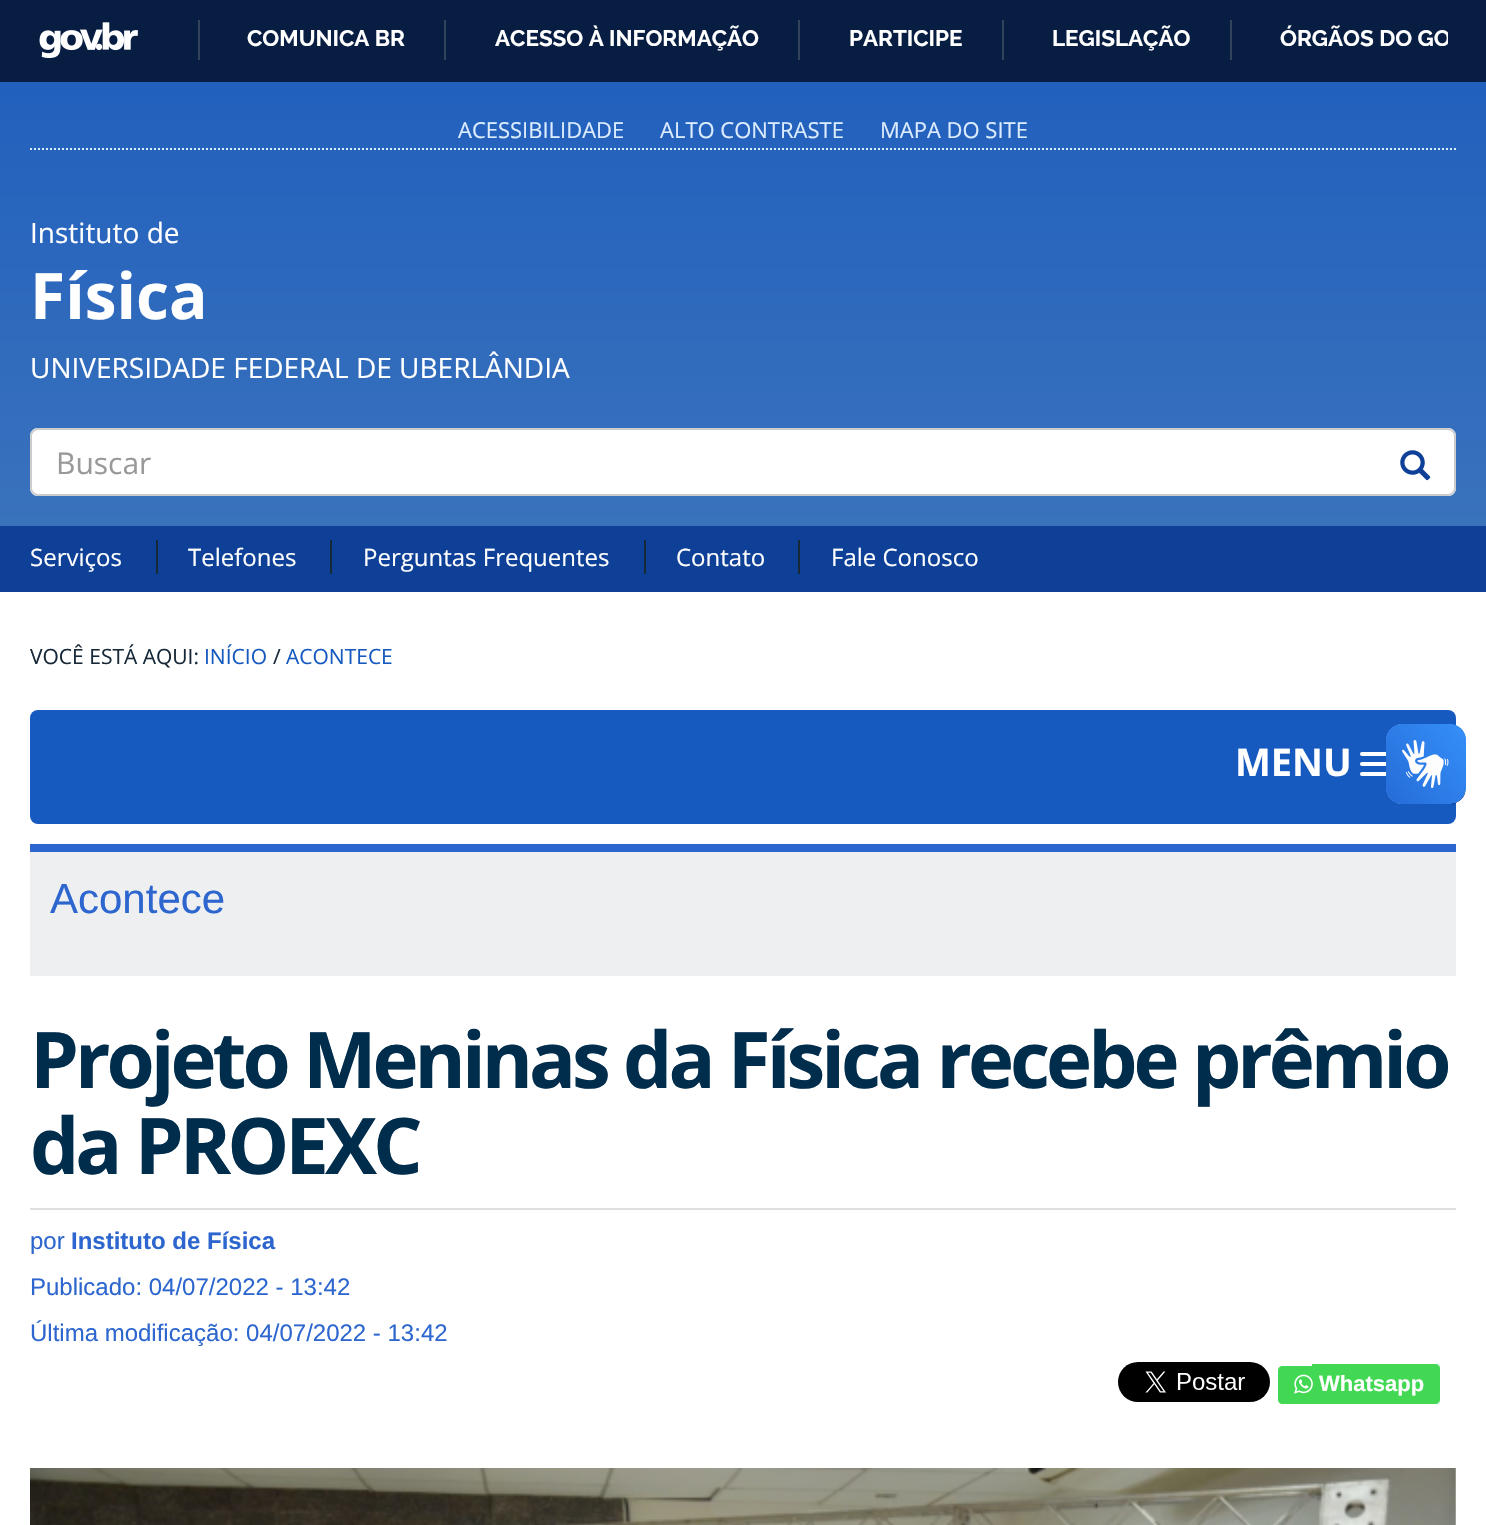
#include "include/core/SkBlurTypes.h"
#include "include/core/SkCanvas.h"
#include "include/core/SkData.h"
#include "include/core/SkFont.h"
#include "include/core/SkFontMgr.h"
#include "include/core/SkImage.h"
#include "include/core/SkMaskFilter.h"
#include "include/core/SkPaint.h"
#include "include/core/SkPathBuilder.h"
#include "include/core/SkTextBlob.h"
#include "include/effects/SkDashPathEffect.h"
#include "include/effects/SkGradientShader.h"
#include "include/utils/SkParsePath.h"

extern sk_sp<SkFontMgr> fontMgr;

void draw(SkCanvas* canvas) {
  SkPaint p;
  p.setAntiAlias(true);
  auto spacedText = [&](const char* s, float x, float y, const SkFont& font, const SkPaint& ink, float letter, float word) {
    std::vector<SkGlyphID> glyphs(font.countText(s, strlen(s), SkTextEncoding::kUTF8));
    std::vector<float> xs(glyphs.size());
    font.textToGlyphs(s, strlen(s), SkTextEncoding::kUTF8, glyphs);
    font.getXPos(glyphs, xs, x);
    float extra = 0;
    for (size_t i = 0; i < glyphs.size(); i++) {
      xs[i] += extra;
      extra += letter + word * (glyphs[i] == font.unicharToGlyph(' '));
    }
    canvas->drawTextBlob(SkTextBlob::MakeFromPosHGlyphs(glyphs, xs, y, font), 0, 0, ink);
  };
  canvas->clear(SK_ColorWHITE);
  p.setColor(SkColorSetRGB(7, 29, 65));
  canvas->drawRect(SkRect::MakeLTRB(0, 0, 1486, 82), p);
  canvas->drawImageRect(SkImages::DeferredFromEncodedData(SkData::MakeFromFileName("images/1.png")), SkRect::MakeLTRB(39, 22, 138, 58), SkSamplingOptions());
  p.setColor(SkColorSetRGB(50, 66, 91));
  canvas->drawRect(SkRect::MakeLTRB(198, 20, 200, 60), p);
  canvas->drawRect(SkRect::MakeLTRB(444, 20, 446, 60), p);
  canvas->drawRect(SkRect::MakeLTRB(798, 20, 800, 60), p);
  canvas->drawRect(SkRect::MakeLTRB(1002, 20, 1004, 60), p);
  canvas->drawRect(SkRect::MakeLTRB(1230, 20, 1232, 60), p);
  {
    const SkColor colors[] = {SkColorSetRGB(33, 96, 189), SkColorSetRGB(58, 114, 188)};
    const float stops[] = {0, 1};
    const SkPoint ends[] = {{743, 82}, {743, 526}};
    p.setShader(SkGradientShader::MakeLinear(ends, colors, stops, 2, SkTileMode::kClamp));
    p.setAlpha(255);
  }
  canvas->drawRect(SkRect::MakeLTRB(0, 82, 1486, 526), p);
  p.setStyle(SkPaint::kStroke_Style);
  p.setStrokeWidth(2);
  p.setShader(nullptr);
  p.setColor(SkColorSetRGB(220, 236, 255));
  p.setPathEffect(SkDashPathEffect::Make({{2, 2}}, 0));
  canvas->drawPath(SkPathBuilder().moveTo(30, 149).lineTo(1456, 149).detach(), p);
  p.setPathEffect(nullptr);
  p.setStyle(SkPaint::kFill_Style);
  p.setColor(SK_ColorWHITE);
  canvas->drawPath(SkPathBuilder().moveTo(1376, 428).lineTo(1448, 428).cubicTo(1452.5f, 428, 1456, 431.5f, 1456, 436).lineTo(1456, 488).cubicTo(1456, 492.5f, 1452.5f, 496, 1448, 496).lineTo(1376, 496).close().detach(), p);
  p.setColor(SkColorSetRGB(204, 204, 204));
  canvas->drawPath(SkPathBuilder(SkPathFillType::kEvenOdd).moveTo(1376, 428).lineTo(1448, 428).cubicTo(1452, 428, 1456, 432, 1456, 436).lineTo(1456, 488).cubicTo(1456, 492, 1452, 496, 1448, 496).lineTo(1376, 496).close().moveTo(1376, 430).lineTo(1448, 430).cubicTo(1451, 430, 1454, 433, 1454, 436).lineTo(1454, 488).cubicTo(1454, 491, 1451, 494, 1448, 494).lineTo(1376, 494).close().detach(), p);
  p.setColor(SK_ColorWHITE);
  canvas->drawPath(SkPathBuilder().moveTo(38, 428).lineTo(1378, 428).lineTo(1378, 496).lineTo(38, 496).cubicTo(33.5f, 496, 30, 492.5f, 30, 488).lineTo(30, 436).cubicTo(30, 431.5f, 33.5f, 428, 38, 428).close().detach(), p);
  p.setColor(SkColorSetRGB(204, 204, 204));
  canvas->drawPath(SkPathBuilder(SkPathFillType::kEvenOdd).moveTo(38, 428).lineTo(1378, 428).lineTo(1378, 496).lineTo(38, 496).cubicTo(34, 496, 30, 492, 30, 488).lineTo(30, 436).cubicTo(30, 432, 34, 428, 38, 428).close().moveTo(38, 430).lineTo(1378, 430).lineTo(1378, 494).lineTo(38, 494).cubicTo(35, 494, 32, 491, 32, 488).lineTo(32, 436).cubicTo(32, 433, 35, 430, 38, 430).close().detach(), p);
  canvas->drawImageRect(SkImages::DeferredFromEncodedData(SkData::MakeFromFileName("images/2.png")), SkRect::MakeLTRB(1400, 450, 1431, 481), SkSamplingOptions());
  p.setColor(SkColorSetRGB(14, 64, 151));
  canvas->drawRect(SkRect::MakeLTRB(0, 526, 1486, 592), p);
  p.setColor(SkColorSetRGB(23, 41, 56));
  canvas->drawRect(SkRect::MakeLTRB(156, 540, 158, 574), p);
  canvas->drawRect(SkRect::MakeLTRB(330, 540, 332, 574), p);
  canvas->drawRect(SkRect::MakeLTRB(644, 540, 646, 574), p);
  canvas->drawRect(SkRect::MakeLTRB(798, 540, 800, 574), p);
  p.setColor(SkColorSetRGB(22, 89, 191));
  canvas->drawRoundRect(SkRect::MakeLTRB(30, 710, 1456, 824), 8, 8, p);
  p.setColor(SK_ColorWHITE);
  canvas->drawRoundRect(SkRect::MakeLTRB(1360, 752, 1404, 756), 2, 2, p);
  canvas->drawRoundRect(SkRect::MakeLTRB(1360, 762, 1404, 766), 2, 2, p);
  canvas->drawRoundRect(SkRect::MakeLTRB(1360, 772, 1404, 776), 2, 2, p);
  p.setColor(SkColorSetRGB(237, 239, 241));
  canvas->drawRect(SkRect::MakeLTRB(30, 852, 1456, 976), p);
  p.setColor(SkColorSetRGB(44, 102, 206));
  canvas->drawRect(SkRect::MakeLTRB(30, 844, 1456, 852), p);
  p.setColor(SkColorSetRGB(223, 223, 223));
  canvas->drawRect(SkRect::MakeLTRB(30, 1208, 1456, 1210), p);
  canvas->drawImageRect(SkImages::DeferredFromEncodedData(SkData::MakeFromFileName("images/3.png")), SkRect::MakeLTRB(1118, 1362, 1270, 1402), SkSamplingOptions());
  p.setColor(SkColorSetRGB(67, 216, 84));
  canvas->drawPath(SkPathBuilder().moveTo(1282, 1366).lineTo(1312, 1366).lineTo(1312, 1404).lineTo(1282, 1404).cubicTo(1280, 1404, 1278, 1402, 1278, 1400).lineTo(1278, 1370).cubicTo(1278, 1368, 1280, 1366, 1282, 1366).close().detach(), p);
  canvas->drawPath(SkPathBuilder().moveTo(1312, 1364).lineTo(1436, 1364).cubicTo(1438, 1364, 1440, 1366, 1440, 1368).lineTo(1440, 1400).cubicTo(1440, 1402, 1438, 1404, 1436, 1404).lineTo(1312, 1404).close().detach(), p);
  canvas->drawImageRect(SkImages::DeferredFromEncodedData(SkData::MakeFromFileName("images/4.png")), SkRect::MakeLTRB(1294, 1374, 1313, 1394), SkSamplingOptions());
  canvas->drawImageRect(SkImages::DeferredFromEncodedData(SkData::MakeFromFileName("images/5.png")), SkRect::MakeLTRB(30, 1468, 1456, 1525), SkSamplingOptions());
  canvas->drawImageRect(SkImages::DeferredFromEncodedData(SkData::MakeFromFileName("images/6.png")), SkRect::MakeLTRB(1386, 724, 1466, 804), SkSamplingOptions());
  canvas->drawImageRect(SkImages::DeferredFromEncodedData(SkData::MakeFromFileName("images/7.png")), SkRect::MakeLTRB(1386, 724, 1466, 804), SkSamplingOptions());
  SkFont font1(fontMgr->matchFamilyStyle("Raleway", SkFontStyle::Bold()), 22.4f);
  font1.setSubpixel(true);
  p.setColor(SK_ColorWHITE);
  canvas->drawString("COMUNICA BR", 247, 46, font1, p);
  canvas->drawString("ACESSO À INFORMAÇÃO", 495, 46, font1, p);
  canvas->drawString("PARTICIPE", 849, 46, font1, p);
  canvas->drawString("LEGISLAÇÃO", 1052, 46, font1, p);
  canvas->save();
  canvas->clipRect(SkRect::MakeLTRB(158, 20, 1448, 60));
  canvas->drawString("ÓRGÃOS DO GO", 1280, 46, font1, p);
  canvas->restore();
  SkFont font2(fontMgr->matchFamilyStyle("Open Sans", SkFontStyle::Normal()), 22);
  font2.setSubpixel(true);
  p.setColor(SkColorSetRGB(220, 236, 255));
  canvas->drawString("ACESSIBILIDADE", 458, 138, font2, p);
  canvas->drawString("ALTO CONTRASTE", 660, 138, font2, p);
  canvas->drawString("MAPA DO SITE", 880, 138, font2, p);
  SkFont font3(fontMgr->matchFamilyStyle("Open Sans", SkFontStyle::Normal()), 28);
  font3.setSubpixel(true);
  p.setColor(SK_ColorWHITE);
  canvas->drawString("Instituto de", 30, 243, font3, p);
  SkFont font4(fontMgr->matchFamilyStyle("Open Sans", SkFontStyle::Bold()), 64);
  font4.setSubpixel(true);
  canvas->drawString("Física", 30, 319, font4, p);
  canvas->drawString("UNIVERSIDADE FEDERAL DE UBERLÂNDIA", 30, 378, font3, p);
  SkFont font5(fontMgr->matchFamilyStyle("Open Sans", SkFontStyle::Normal()), 30);
  font5.setSubpixel(true);
  p.setColor(SkColorSetRGB(153, 153, 153));
  canvas->drawString("Buscar", 56, 474, font5, p);
  SkFont font6(fontMgr->matchFamilyStyle("Open Sans", SkFontStyle::Normal()), 24);
  font6.setSubpixel(true);
  p.setColor(SK_ColorWHITE);
  canvas->drawString("Serviços", 30, 566, font6, p);
  canvas->drawString("Telefones", 188, 566, font6, p);
  canvas->drawString("Perguntas Frequentes", 363, 566, font6, p);
  canvas->drawString("Contato", 676, 566, font6, p);
  canvas->drawString("Fale Conosco", 831, 566, font6, p);
  SkFont font7(fontMgr->matchFamilyStyle("Open Sans", SkFontStyle::Normal()), 21);
  font7.setSubpixel(true);
  p.setColor(SkColorSetRGB(23, 41, 56));
  canvas->drawString("VOCÊ ESTÁ AQUI:", 30, 664, font7, p);
  p.setColor(SkColorSetRGB(22, 90, 191));
  canvas->drawString("INÍCIO", 204, 664, font7, p);
  p.setColor(SkColorSetRGB(23, 41, 56));
  canvas->drawString("/", 273, 664, font7, p);
  p.setColor(SkColorSetRGB(22, 90, 191));
  canvas->drawString("ACONTECE", 286, 664, font7, p);
  SkFont font8(fontMgr->matchFamilyStyle("Open Sans", SkFontStyle::Bold()), 38);
  font8.setSubpixel(true);
  p.setColor(SK_ColorWHITE);
  canvas->drawString("MENU", 1235, 776, font8, p);
  SkFont font9(fontMgr->matchFamilyStyle("Liberation Sans", SkFontStyle::Normal()), 42);
  font9.setSubpixel(true);
  p.setColor(SkColorSetRGB(44, 102, 206));
  canvas->drawString("Acontece", 50, 913, font9, p);
  SkFont font10(fontMgr->matchFamilyStyle("Open Sans", SkFontStyle::Bold()), 78);
  font10.setSubpixel(true);
  p.setColor(SkColorSetRGB(1, 45, 77));
  spacedText("Projeto Meninas da Física recebe prêmio", 30, 1088, font10, p, -4, 0);
  spacedText("da PROEXC", 30, 1174, font10, p, -4, 0);
  SkFont font11(fontMgr->matchFamilyStyle("Liberation Sans", SkFontStyle::Normal()), 24);
  font11.setSubpixel(true);
  p.setColor(SkColorSetRGB(44, 102, 206));
  canvas->drawString("por", 30, 1249, font11, p);
  SkFont font12(fontMgr->matchFamilyStyle("Liberation Sans", SkFontStyle::Bold()), 24);
  font12.setSubpixel(true);
  canvas->drawString("Instituto de Física", 71, 1249, font12, p);
  canvas->drawString("Publicado: 04/07/2022 - 13:42", 30, 1295, font11, p);
  canvas->drawString("Última modificação: 04/07/2022 - 13:42", 30, 1341, font11, p);
  SkFont font13(fontMgr->matchFamilyStyle("Liberation Sans", SkFontStyle::Bold()), 22);
  font13.setSubpixel(true);
  p.setColor(SK_ColorWHITE);
  canvas->drawString("Whatsapp", 1319, 1391, font13, p);
}
